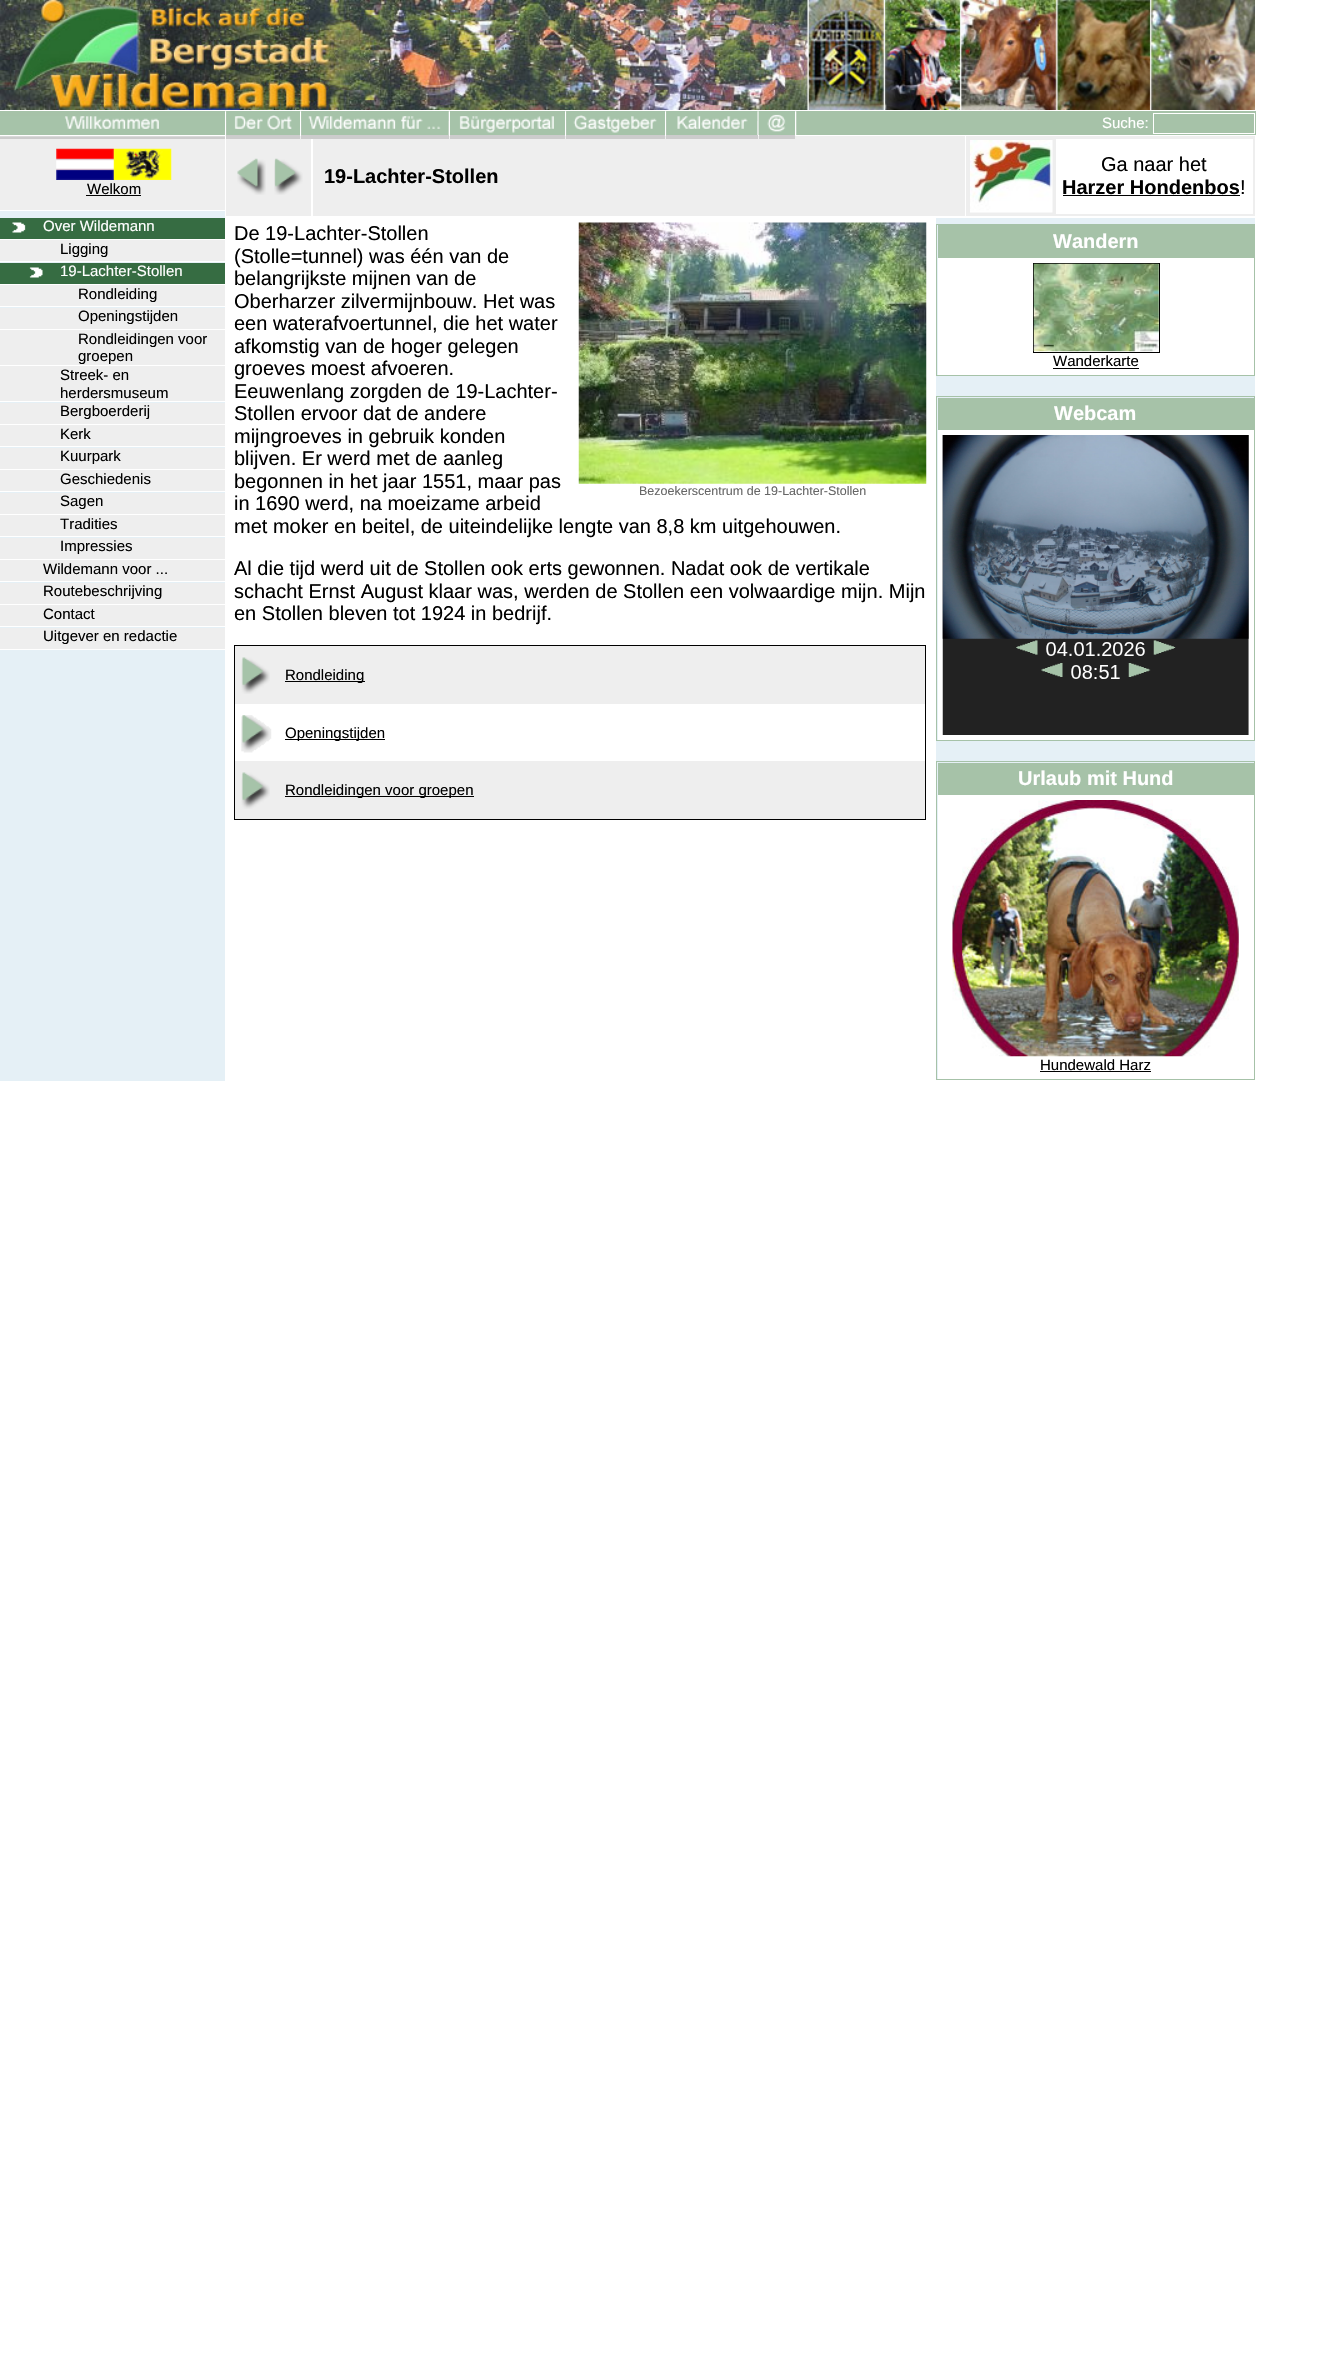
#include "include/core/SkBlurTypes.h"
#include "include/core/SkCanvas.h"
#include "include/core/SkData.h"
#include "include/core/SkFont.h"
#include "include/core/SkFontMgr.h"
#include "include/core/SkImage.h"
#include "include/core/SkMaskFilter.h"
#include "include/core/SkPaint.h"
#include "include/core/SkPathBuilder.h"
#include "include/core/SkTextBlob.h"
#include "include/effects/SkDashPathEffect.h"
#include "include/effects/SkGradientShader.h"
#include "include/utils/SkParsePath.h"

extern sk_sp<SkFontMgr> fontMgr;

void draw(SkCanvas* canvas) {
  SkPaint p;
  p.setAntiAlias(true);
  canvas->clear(SK_ColorWHITE);
  canvas->drawImageRect(SkImages::DeferredFromEncodedData(SkData::MakeFromFileName("images/1.png")), SkRect::MakeLTRB(0, 0, 1255, 110), SkSamplingOptions());
  p.setColor(SkColorSetRGB(166, 194, 168));
  canvas->drawRect(SkRect::MakeLTRB(0, 111, 225, 116), p);
  canvas->drawImageRect(SkImages::DeferredFromEncodedData(SkData::MakeFromFileName("images/2.png")), SkRect::MakeLTRB(0, 116, 225, 135), SkSamplingOptions());
  p.setColor(SkColorSetRGB(238, 238, 238));
  canvas->drawRect(SkRect::MakeLTRB(0, 136, 3, 210), p);
  p.setColor(SkColorSetRGB(204, 204, 204));
  canvas->drawRect(SkRect::MakeLTRB(0, 136, 225, 139), p);
  p.setColor(SkColorSetRGB(166, 194, 168));
  canvas->drawRect(SkRect::MakeLTRB(225, 111, 1256, 135), p);
  canvas->drawImageRect(SkImages::DeferredFromEncodedData(SkData::MakeFromFileName("images/3.png")), SkRect::MakeLTRB(225, 111, 227, 135), SkSamplingOptions());
  p.setColor(SkColorSetRGB(238, 238, 238));
  canvas->drawRect(SkRect::MakeLTRB(226, 136, 311, 216), p);
  p.setColor(SkColorSetRGB(204, 204, 204));
  canvas->drawRect(SkRect::MakeLTRB(226, 121, 300, 139), p);
  canvas->drawImageRect(SkImages::DeferredFromEncodedData(SkData::MakeFromFileName("images/4.png")), SkRect::MakeLTRB(226, 111, 300, 135), SkSamplingOptions());
  canvas->drawImageRect(SkImages::DeferredFromEncodedData(SkData::MakeFromFileName("images/3.png")), SkRect::MakeLTRB(300, 111, 302, 135), SkSamplingOptions());
  p.setColor(SkColorSetRGB(238, 238, 238));
  canvas->drawRect(SkRect::MakeLTRB(313, 136, 965, 216), p);
  p.setColor(SkColorSetRGB(204, 204, 204));
  canvas->drawRect(SkRect::MakeLTRB(301, 121, 449, 139), p);
  canvas->drawImageRect(SkImages::DeferredFromEncodedData(SkData::MakeFromFileName("images/5.png")), SkRect::MakeLTRB(301, 111, 449, 135), SkSamplingOptions());
  canvas->drawImageRect(SkImages::DeferredFromEncodedData(SkData::MakeFromFileName("images/6.png")), SkRect::MakeLTRB(448, 111, 450, 135), SkSamplingOptions());
  canvas->drawImageRect(SkImages::DeferredFromEncodedData(SkData::MakeFromFileName("images/3.png")), SkRect::MakeLTRB(565, 111, 567, 135), SkSamplingOptions());
  canvas->drawRect(SkRect::MakeLTRB(566, 121, 665, 139), p);
  canvas->drawImageRect(SkImages::DeferredFromEncodedData(SkData::MakeFromFileName("images/7.png")), SkRect::MakeLTRB(566, 111, 665, 135), SkSamplingOptions());
  canvas->drawImageRect(SkImages::DeferredFromEncodedData(SkData::MakeFromFileName("images/3.png")), SkRect::MakeLTRB(665, 111, 667, 135), SkSamplingOptions());
  canvas->drawRect(SkRect::MakeLTRB(666, 121, 758, 139), p);
  canvas->drawImageRect(SkImages::DeferredFromEncodedData(SkData::MakeFromFileName("images/8.png")), SkRect::MakeLTRB(666, 111, 758, 135), SkSamplingOptions());
  canvas->drawImageRect(SkImages::DeferredFromEncodedData(SkData::MakeFromFileName("images/9.png")), SkRect::MakeLTRB(757, 111, 759, 135), SkSamplingOptions());
  canvas->drawImageRect(SkImages::DeferredFromEncodedData(SkData::MakeFromFileName("images/10.png")), SkRect::MakeLTRB(450, 116, 565, 135), SkSamplingOptions());
  canvas->drawImageRect(SkImages::DeferredFromEncodedData(SkData::MakeFromFileName("images/11.png")), SkRect::MakeLTRB(758, 111, 795, 135), SkSamplingOptions());
  canvas->drawImageRect(SkImages::DeferredFromEncodedData(SkData::MakeFromFileName("images/3.png")), SkRect::MakeLTRB(795, 111, 797, 135), SkSamplingOptions());
  canvas->drawRect(SkRect::MakeLTRB(450, 135, 565, 139), p);
  canvas->drawRect(SkRect::MakeLTRB(759, 135, 795, 139), p);
  p.setStyle(SkPaint::kStroke_Style);
  p.setStrokeWidth(1);
  p.setColor(SK_ColorWHITE);
  canvas->drawRect(SkRect::MakeLTRB(1153.5f, 113.5f, 1254.5f, 133.5f), p);
  p.setStyle(SkPaint::kFill_Style);
  p.setColor(SkColorSetRGB(229, 240, 246));
  canvas->drawRect(SkRect::MakeLTRB(0, 211, 225, 1081), p);
  canvas->drawImageRect(SkImages::DeferredFromEncodedData(SkData::MakeFromFileName("images/12.png")), SkRect::MakeLTRB(0, 135, 225, 137), SkSamplingOptions());
  p.setColor(SkColorSetRGB(238, 238, 238));
  canvas->drawRect(SkRect::MakeLTRB(3, 139, 225, 210), p);
  canvas->drawImageRect(SkImages::DeferredFromEncodedData(SkData::MakeFromFileName("images/13.png")), SkRect::MakeLTRB(56, 148, 172, 180), SkSamplingOptions());
  p.setColor(SK_ColorBLACK);
  canvas->drawRect(SkRect::MakeLTRB(86, 195, 141, 196), p);
  p.setColor(SkColorSetRGB(54, 108, 66));
  canvas->drawRect(SkRect::MakeLTRB(0, 218, 225, 239), p);
  canvas->drawImageRect(SkImages::DeferredFromEncodedData(SkData::MakeFromFileName("images/14.png")), SkRect::MakeLTRB(12, 222, 26, 233), SkSamplingOptions());
  p.setColor(SK_ColorWHITE);
  canvas->drawRect(SkRect::MakeLTRB(0, 239, 225, 240), p);
  p.setColor(SkColorSetRGB(238, 238, 238));
  canvas->drawRect(SkRect::MakeLTRB(0, 240, 225, 261), p);
  p.setColor(SK_ColorWHITE);
  canvas->drawRect(SkRect::MakeLTRB(0, 261, 225, 262), p);
  p.setColor(SkColorSetRGB(54, 108, 66));
  canvas->drawRect(SkRect::MakeLTRB(0, 263, 225, 284), p);
  canvas->drawImageRect(SkImages::DeferredFromEncodedData(SkData::MakeFromFileName("images/15.png")), SkRect::MakeLTRB(29, 267, 43, 278), SkSamplingOptions());
  p.setColor(SK_ColorWHITE);
  canvas->drawRect(SkRect::MakeLTRB(0, 284, 225, 285), p);
  p.setColor(SkColorSetRGB(238, 238, 238));
  canvas->drawRect(SkRect::MakeLTRB(0, 285, 225, 306), p);
  p.setColor(SK_ColorWHITE);
  canvas->drawRect(SkRect::MakeLTRB(0, 306, 225, 307), p);
  p.setColor(SkColorSetRGB(238, 238, 238));
  canvas->drawRect(SkRect::MakeLTRB(0, 308, 225, 329), p);
  p.setColor(SK_ColorWHITE);
  canvas->drawRect(SkRect::MakeLTRB(0, 329, 225, 330), p);
  p.setColor(SkColorSetRGB(238, 238, 238));
  canvas->drawRect(SkRect::MakeLTRB(0, 330, 225, 365), p);
  p.setColor(SK_ColorWHITE);
  canvas->drawRect(SkRect::MakeLTRB(0, 365, 225, 366), p);
  p.setColor(SkColorSetRGB(238, 238, 238));
  canvas->drawRect(SkRect::MakeLTRB(0, 366, 225, 401), p);
  p.setColor(SK_ColorWHITE);
  canvas->drawRect(SkRect::MakeLTRB(0, 401, 225, 402), p);
  p.setColor(SkColorSetRGB(238, 238, 238));
  canvas->drawRect(SkRect::MakeLTRB(0, 403, 225, 424), p);
  p.setColor(SK_ColorWHITE);
  canvas->drawRect(SkRect::MakeLTRB(0, 424, 225, 425), p);
  p.setColor(SkColorSetRGB(238, 238, 238));
  canvas->drawRect(SkRect::MakeLTRB(0, 425, 225, 446), p);
  p.setColor(SK_ColorWHITE);
  canvas->drawRect(SkRect::MakeLTRB(0, 446, 225, 447), p);
  p.setColor(SkColorSetRGB(238, 238, 238));
  canvas->drawRect(SkRect::MakeLTRB(0, 448, 225, 469), p);
  p.setColor(SK_ColorWHITE);
  canvas->drawRect(SkRect::MakeLTRB(0, 469, 225, 470), p);
  p.setColor(SkColorSetRGB(238, 238, 238));
  canvas->drawRect(SkRect::MakeLTRB(0, 470, 225, 491), p);
  p.setColor(SK_ColorWHITE);
  canvas->drawRect(SkRect::MakeLTRB(0, 491, 225, 492), p);
  p.setColor(SkColorSetRGB(238, 238, 238));
  canvas->drawRect(SkRect::MakeLTRB(0, 493, 225, 514), p);
  p.setColor(SK_ColorWHITE);
  canvas->drawRect(SkRect::MakeLTRB(0, 514, 225, 515), p);
  p.setColor(SkColorSetRGB(238, 238, 238));
  canvas->drawRect(SkRect::MakeLTRB(0, 515, 225, 536), p);
  p.setColor(SK_ColorWHITE);
  canvas->drawRect(SkRect::MakeLTRB(0, 536, 225, 537), p);
  p.setColor(SkColorSetRGB(238, 238, 238));
  canvas->drawRect(SkRect::MakeLTRB(0, 538, 225, 559), p);
  p.setColor(SK_ColorWHITE);
  canvas->drawRect(SkRect::MakeLTRB(0, 559, 225, 560), p);
  p.setColor(SkColorSetRGB(238, 238, 238));
  canvas->drawRect(SkRect::MakeLTRB(0, 560, 225, 581), p);
  p.setColor(SK_ColorWHITE);
  canvas->drawRect(SkRect::MakeLTRB(0, 581, 225, 582), p);
  p.setColor(SkColorSetRGB(238, 238, 238));
  canvas->drawRect(SkRect::MakeLTRB(0, 583, 225, 604), p);
  p.setColor(SK_ColorWHITE);
  canvas->drawRect(SkRect::MakeLTRB(0, 604, 225, 605), p);
  p.setColor(SkColorSetRGB(238, 238, 238));
  canvas->drawRect(SkRect::MakeLTRB(0, 605, 225, 626), p);
  p.setColor(SK_ColorWHITE);
  canvas->drawRect(SkRect::MakeLTRB(0, 626, 225, 627), p);
  p.setColor(SkColorSetRGB(238, 238, 238));
  canvas->drawRect(SkRect::MakeLTRB(0, 628, 225, 649), p);
  p.setColor(SK_ColorWHITE);
  canvas->drawRect(SkRect::MakeLTRB(0, 649, 225, 650), p);
  canvas->drawImageRect(SkImages::DeferredFromEncodedData(SkData::MakeFromFileName("images/16.png")), SkRect::MakeLTRB(237, 158, 266, 195), SkSamplingOptions());
  canvas->drawImageRect(SkImages::DeferredFromEncodedData(SkData::MakeFromFileName("images/17.png")), SkRect::MakeLTRB(274, 158, 303, 195), SkSamplingOptions());
  p.setColor(SkColorSetRGB(238, 238, 238));
  canvas->drawRect(SkRect::MakeLTRB(966, 136, 1255, 216), p);
  canvas->drawImageRect(SkImages::DeferredFromEncodedData(SkData::MakeFromFileName("images/18.png")), SkRect::MakeLTRB(970, 140, 1053, 213), SkSamplingOptions());
  p.setColor(SK_ColorWHITE);
  canvas->drawRect(SkRect::MakeLTRB(1056, 139, 1253, 214), p);
  p.setColor(SK_ColorBLACK);
  canvas->drawRect(SkRect::MakeLTRB(1063, 195, 1240, 196), p);
  canvas->drawImageRect(SkImages::DeferredFromEncodedData(SkData::MakeFromFileName("images/19.png")), SkRect::MakeLTRB(578, 222, 927, 484), SkSamplingOptions());
  p.setStyle(SkPaint::kStroke_Style);
  canvas->drawRect(SkRect::MakeLTRB(234.5f, 645.5f, 925.5f, 819.5f), p);
  p.setStyle(SkPaint::kFill_Style);
  p.setColor(SkColorSetRGB(238, 238, 238));
  canvas->drawRect(SkRect::MakeLTRB(235, 646, 925, 704), p);
  canvas->drawImageRect(SkImages::DeferredFromEncodedData(SkData::MakeFromFileName("images/20.png")), SkRect::MakeLTRB(241, 657, 270, 694), SkSamplingOptions());
  p.setColor(SK_ColorBLACK);
  canvas->drawRect(SkRect::MakeLTRB(285, 681, 365, 682), p);
  canvas->drawImageRect(SkImages::DeferredFromEncodedData(SkData::MakeFromFileName("images/21.png")), SkRect::MakeLTRB(241, 715, 272, 753), SkSamplingOptions());
  canvas->drawRect(SkRect::MakeLTRB(285, 739, 385, 740), p);
  p.setColor(SkColorSetRGB(238, 238, 238));
  canvas->drawRect(SkRect::MakeLTRB(235, 761, 925, 819), p);
  canvas->drawImageRect(SkImages::DeferredFromEncodedData(SkData::MakeFromFileName("images/20.png")), SkRect::MakeLTRB(241, 772, 270, 809), SkSamplingOptions());
  p.setColor(SK_ColorBLACK);
  canvas->drawRect(SkRect::MakeLTRB(285, 796, 474, 797), p);
  p.setColor(SkColorSetRGB(229, 240, 246));
  canvas->drawRect(SkRect::MakeLTRB(936, 218, 1255, 1079), p);
  p.setStyle(SkPaint::kStroke_Style);
  p.setColor(SkColorSetRGB(166, 194, 168));
  canvas->drawRect(SkRect::MakeLTRB(936.5f, 224.5f, 1254.5f, 375.5f), p);
  p.setStyle(SkPaint::kFill_Style);
  canvas->drawRect(SkRect::MakeLTRB(938, 225, 1254, 258), p);
  p.setColor(SK_ColorWHITE);
  canvas->drawRect(SkRect::MakeLTRB(938, 258, 1254, 375), p);
  p.setStyle(SkPaint::kStroke_Style);
  p.setColor(SK_ColorBLACK);
  canvas->drawRect(SkRect::MakeLTRB(1033.5f, 263.5f, 1159.5f, 352.5f), p);
  canvas->drawImageRect(SkImages::DeferredFromEncodedData(SkData::MakeFromFileName("images/22.png")), SkRect::MakeLTRB(1033, 263, 1159, 352), SkSamplingOptions());
  p.setStyle(SkPaint::kFill_Style);
  canvas->drawRect(SkRect::MakeLTRB(1053, 368, 1139, 369), p);
  p.setStyle(SkPaint::kStroke_Style);
  p.setColor(SkColorSetRGB(166, 194, 168));
  canvas->drawRect(SkRect::MakeLTRB(936.5f, 396.5f, 1254.5f, 740.5f), p);
  p.setStyle(SkPaint::kFill_Style);
  canvas->drawRect(SkRect::MakeLTRB(938, 398, 1254, 430), p);
  p.setColor(SK_ColorWHITE);
  canvas->drawRect(SkRect::MakeLTRB(938, 430, 1254, 740), p);
  canvas->drawImageRect(SkImages::DeferredFromEncodedData(SkData::MakeFromFileName("images/23.png")), SkRect::MakeLTRB(942, 435, 1249, 735), SkSamplingOptions());
  p.setStyle(SkPaint::kStroke_Style);
  p.setColor(SkColorSetRGB(166, 194, 168));
  canvas->drawRect(SkRect::MakeLTRB(936.5f, 761.5f, 1254.5f, 1079.5f), p);
  p.setStyle(SkPaint::kFill_Style);
  canvas->drawRect(SkRect::MakeLTRB(938, 763, 1254, 795), p);
  p.setColor(SK_ColorWHITE);
  canvas->drawRect(SkRect::MakeLTRB(938, 795, 1254, 1079), p);
  canvas->drawImageRect(SkImages::DeferredFromEncodedData(SkData::MakeFromFileName("images/24.png")), SkRect::MakeLTRB(952, 800, 1239, 1057), SkSamplingOptions());
  p.setColor(SK_ColorBLACK);
  canvas->drawRect(SkRect::MakeLTRB(1040, 1071, 1151, 1072), p);
  SkFont font1(fontMgr->matchFamilyStyle("Liberation Sans", SkFontStyle::Normal()), 15);
  font1.setSubpixel(true);
  p.setColor(SK_ColorWHITE);
  canvas->drawString("Suche:", 1102, 128, font1, p);
  p.setColor(SK_ColorBLACK);
  canvas->drawString("Welkom", 87, 194, font1, p);
  p.setColor(SK_ColorWHITE);
  canvas->drawString("Over Wildemann", 43, 231, font1, p);
  p.setColor(SK_ColorBLACK);
  canvas->drawString("Ligging", 60, 254, font1, p);
  p.setColor(SK_ColorWHITE);
  canvas->drawString("19-Lachter-Stollen", 60, 276, font1, p);
  p.setColor(SK_ColorBLACK);
  canvas->drawString("Rondleiding", 78, 299, font1, p);
  canvas->drawString("Openingstijden", 78, 321, font1, p);
  canvas->drawString("Rondleidingen voor", 78, 344, font1, p);
  canvas->drawString("groepen", 78, 361, font1, p);
  canvas->drawString("Streek- en", 60, 380, font1, p);
  canvas->drawString("herdersmuseum", 60, 398, font1, p);
  canvas->drawString("Bergboerderij", 60, 416, font1, p);
  canvas->drawString("Kerk", 60, 439, font1, p);
  canvas->drawString("Kuurpark", 60, 461, font1, p);
  canvas->drawString("Geschiedenis", 60, 484, font1, p);
  canvas->drawString("Sagen", 60, 506, font1, p);
  canvas->drawString("Tradities", 60, 529, font1, p);
  canvas->drawString("Impressies", 60, 551, font1, p);
  canvas->drawString("Wildemann voor ...", 43, 574, font1, p);
  canvas->drawString("Routebeschrijving", 43, 596, font1, p);
  canvas->drawString("Contact", 43, 619, font1, p);
  canvas->drawString("Uitgever en redactie", 43, 641, font1, p);
  SkFont font2(fontMgr->matchFamilyStyle("Liberation Sans", SkFontStyle::Bold()), 20);
  font2.setSubpixel(true);
  canvas->drawString("19-Lachter-Stollen", 324, 183, font2, p);
  SkFont font3(fontMgr->matchFamilyStyle("Liberation Sans", SkFontStyle::Normal()), 20);
  font3.setSubpixel(true);
  canvas->drawString("Ga naar het", 1101, 171, font3, p);
  canvas->drawString("Harzer Hondenbos", 1062, 194, font2, p);
  canvas->drawString("!", 1240, 194, font3, p);
  canvas->drawString("De 19-Lachter-Stollen", 234, 240, font3, p);
  canvas->drawString("(Stolle=tunnel) was één van de", 234, 263, font3, p);
  canvas->drawString("belangrijkste mijnen van de", 234, 285, font3, p);
  canvas->drawString("Oberharzer zilvermijnbouw. Het was", 234, 308, font3, p);
  canvas->drawString("een waterafvoertunnel, die het water", 234, 330, font3, p);
  canvas->drawString("afkomstig van de hoger gelegen", 234, 353, font3, p);
  canvas->drawString("groeves moest afvoeren.", 234, 375, font3, p);
  canvas->drawString("Eeuwenlang zorgden de 19-Lachter-", 234, 398, font3, p);
  canvas->drawString("Stollen ervoor dat de andere", 234, 420, font3, p);
  canvas->drawString("mijngroeves in gebruik konden", 234, 443, font3, p);
  canvas->drawString("blijven. Er werd met de aanleg", 234, 465, font3, p);
  canvas->drawString("begonnen in het jaar 1551, maar pas", 234, 488, font3, p);
  SkFont font4(fontMgr->matchFamilyStyle("Liberation Sans", SkFontStyle::Normal()), 12.5f);
  font4.setSubpixel(true);
  p.setColor(SkColorSetRGB(102, 102, 102));
  canvas->drawString("Bezoekerscentrum de 19-Lachter-Stollen", 639, 495, font4, p);
  p.setColor(SK_ColorBLACK);
  canvas->drawString("in 1690 werd, na moeizame arbeid", 234, 510, font3, p);
  canvas->drawString("met moker en beitel, de uiteindelijke lengte van 8,8 km uitgehouwen.", 234, 533, font3, p);
  canvas->drawString("Al die tijd werd uit de Stollen ook erts gewonnen. Nadat ook de vertikale", 234, 575, font3, p);
  canvas->drawString("schacht Ernst August klaar was, werden de Stollen een volwaardige mijn. Mijn", 234, 598, font3, p);
  canvas->drawString("en Stollen bleven tot 1924 in bedrijf.", 234, 620, font3, p);
  canvas->drawString("Rondleiding", 285, 680, font1, p);
  canvas->drawString("Openingstijden", 285, 738, font1, p);
  canvas->drawString("Rondleidingen voor groepen", 285, 795, font1, p);
  p.setColor(SK_ColorWHITE);
  canvas->drawString("Wandern", 1053, 248, font2, p);
  p.setColor(SK_ColorBLACK);
  canvas->drawString("Wanderkarte", 1053, 366, font1, p);
  p.setColor(SK_ColorWHITE);
  canvas->drawString("Webcam", 1054, 420, font2, p);
  canvas->drawString("Urlaub mit Hund", 1018, 785, font2, p);
  p.setColor(SK_ColorBLACK);
  canvas->drawString("Hundewald Harz", 1040, 1070, font1, p);
}
